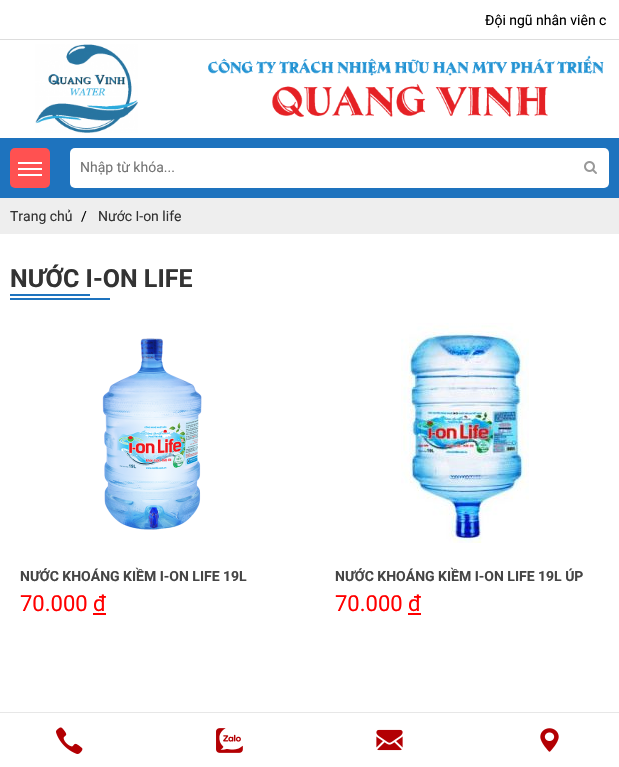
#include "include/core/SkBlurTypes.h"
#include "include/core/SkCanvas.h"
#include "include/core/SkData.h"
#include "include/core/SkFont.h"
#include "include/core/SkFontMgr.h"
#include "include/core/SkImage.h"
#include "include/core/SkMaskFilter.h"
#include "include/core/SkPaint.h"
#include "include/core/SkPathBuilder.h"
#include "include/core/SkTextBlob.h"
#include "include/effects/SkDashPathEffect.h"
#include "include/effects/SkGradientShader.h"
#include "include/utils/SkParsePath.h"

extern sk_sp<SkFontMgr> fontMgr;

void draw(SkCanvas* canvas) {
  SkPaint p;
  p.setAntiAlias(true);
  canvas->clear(SK_ColorWHITE);
  p.setColor(SkColorSetRGB(221, 221, 221));
  canvas->drawRect(SkRect::MakeLTRB(0, 39, 619, 40), p);
  canvas->drawImageRect(SkImages::DeferredFromEncodedData(SkData::MakeFromFileName("images/1.png")), SkRect::MakeLTRB(35, 44, 138, 133), SkSamplingOptions());
  canvas->drawImageRect(SkImages::DeferredFromEncodedData(SkData::MakeFromFileName("images/2.png")), SkRect::MakeLTRB(208, 55, 604, 117), SkSamplingOptions());
  p.setColor(SkColorSetRGB(30, 115, 190));
  canvas->drawRect(SkRect::MakeLTRB(0, 138, 619, 198), p);
  p.setColor(SkColorSetRGB(255, 81, 81));
  canvas->drawRoundRect(SkRect::MakeLTRB(10, 148, 50, 188), 5, 5, p);
  p.setColor(SK_ColorWHITE);
  canvas->drawRect(SkRect::MakeLTRB(18, 168, 42, 170), p);
  canvas->drawRect(SkRect::MakeLTRB(18, 162, 42, 164), p);
  canvas->drawRect(SkRect::MakeLTRB(18, 174, 42, 176), p);
  canvas->drawRoundRect(SkRect::MakeLTRB(70, 148, 609, 188), 5, 5, p);
  canvas->drawImageRect(SkImages::DeferredFromEncodedData(SkData::MakeFromFileName("images/3.png")), SkRect::MakeLTRB(584, 161, 597, 174), SkSamplingOptions());
  p.setColor(SkColorSetRGB(238, 238, 238));
  canvas->drawRect(SkRect::MakeLTRB(0, 198, 619, 234), p);
  p.setColor(SkColorSetRGB(30, 115, 190));
  canvas->drawRect(SkRect::MakeLTRB(10, 294, 90, 296), p);
  canvas->drawRect(SkRect::MakeLTRB(10, 298, 110, 300), p);
  canvas->drawImageRect(SkImages::DeferredFromEncodedData(SkData::MakeFromFileName("images/4.png")), SkRect::MakeLTRB(102, 338, 202, 530), SkSamplingOptions());
  p.setColor(SkColorSetRGB(255, 0, 0));
  canvas->drawRect(SkRect::MakeLTRB(93, 613, 106, 615), p);
  canvas->drawImageRect(SkImages::DeferredFromEncodedData(SkData::MakeFromFileName("images/5.png")), SkRect::MakeLTRB(401, 323, 529, 543), SkSamplingOptions());
  canvas->drawRect(SkRect::MakeLTRB(408, 613, 421, 615), p);
  p.setColor(SkColorSetRGB(231, 231, 231));
  canvas->drawRect(SkRect::MakeLTRB(0, 712, 619, 713), p);
  canvas->drawImageRect(SkImages::DeferredFromEncodedData(SkData::MakeFromFileName("images/6.png")), SkRect::MakeLTRB(56, 727, 83, 754), SkSamplingOptions());
  canvas->drawImageRect(SkImages::DeferredFromEncodedData(SkData::MakeFromFileName("images/7.png")), SkRect::MakeLTRB(216, 728, 243, 753), SkSamplingOptions());
  canvas->drawImageRect(SkImages::DeferredFromEncodedData(SkData::MakeFromFileName("images/8.png")), SkRect::MakeLTRB(376, 729, 403, 751), SkSamplingOptions());
  canvas->drawImageRect(SkImages::DeferredFromEncodedData(SkData::MakeFromFileName("images/9.png")), SkRect::MakeLTRB(540, 728, 559, 752), SkSamplingOptions());
  SkFont font1(fontMgr->matchFamilyStyle("Roboto", SkFontStyle::Normal()), 14);
  font1.setSubpixel(true);
  p.setColor(SK_ColorBLACK);
  canvas->drawString("Đội ngũ nhân viên c", 485, 25, font1, p);
  p.setColor(SkColorSetRGB(117, 117, 117));
  canvas->drawString("Nhập từ khóa...", 80, 172, font1, p);
  p.setColor(SkColorSetRGB(51, 51, 51));
  canvas->drawString("Trang chủ", 10, 221, font1, p);
  p.setColor(SK_ColorBLACK);
  canvas->drawString("/", 81, 221, font1, p);
  p.setColor(SkColorSetRGB(51, 51, 51));
  canvas->drawString("Nước I-on life", 98, 221, font1, p);
  SkFont font2(fontMgr->matchFamilyStyle("Roboto", SkFontStyle::Bold()), 25);
  font2.setSubpixel(true);
  canvas->drawString("NƯỚC I-ON LIFE", 10, 287, font2, p);
  SkFont font3(fontMgr->matchFamilyStyle("Roboto", SkFontStyle::Bold()), 14);
  font3.setSubpixel(true);
  p.setColor(SkColorSetRGB(69, 69, 69));
  canvas->drawString("NƯỚC KHOÁNG KIỀM I-ON LIFE 19L", 20, 581, font3, p);
  SkFont font4(fontMgr->matchFamilyStyle("Roboto", SkFontStyle::Normal()), 22);
  font4.setSubpixel(true);
  p.setColor(SkColorSetRGB(255, 0, 0));
  canvas->drawString("70.000 đ", 20, 611, font4, p);
  p.setColor(SkColorSetRGB(69, 69, 69));
  canvas->drawString("NƯỚC KHOÁNG KIỀM I-ON LIFE 19L ÚP", 335, 581, font3, p);
  p.setColor(SkColorSetRGB(255, 0, 0));
  canvas->drawString("70.000 đ", 335, 611, font4, p);
}
